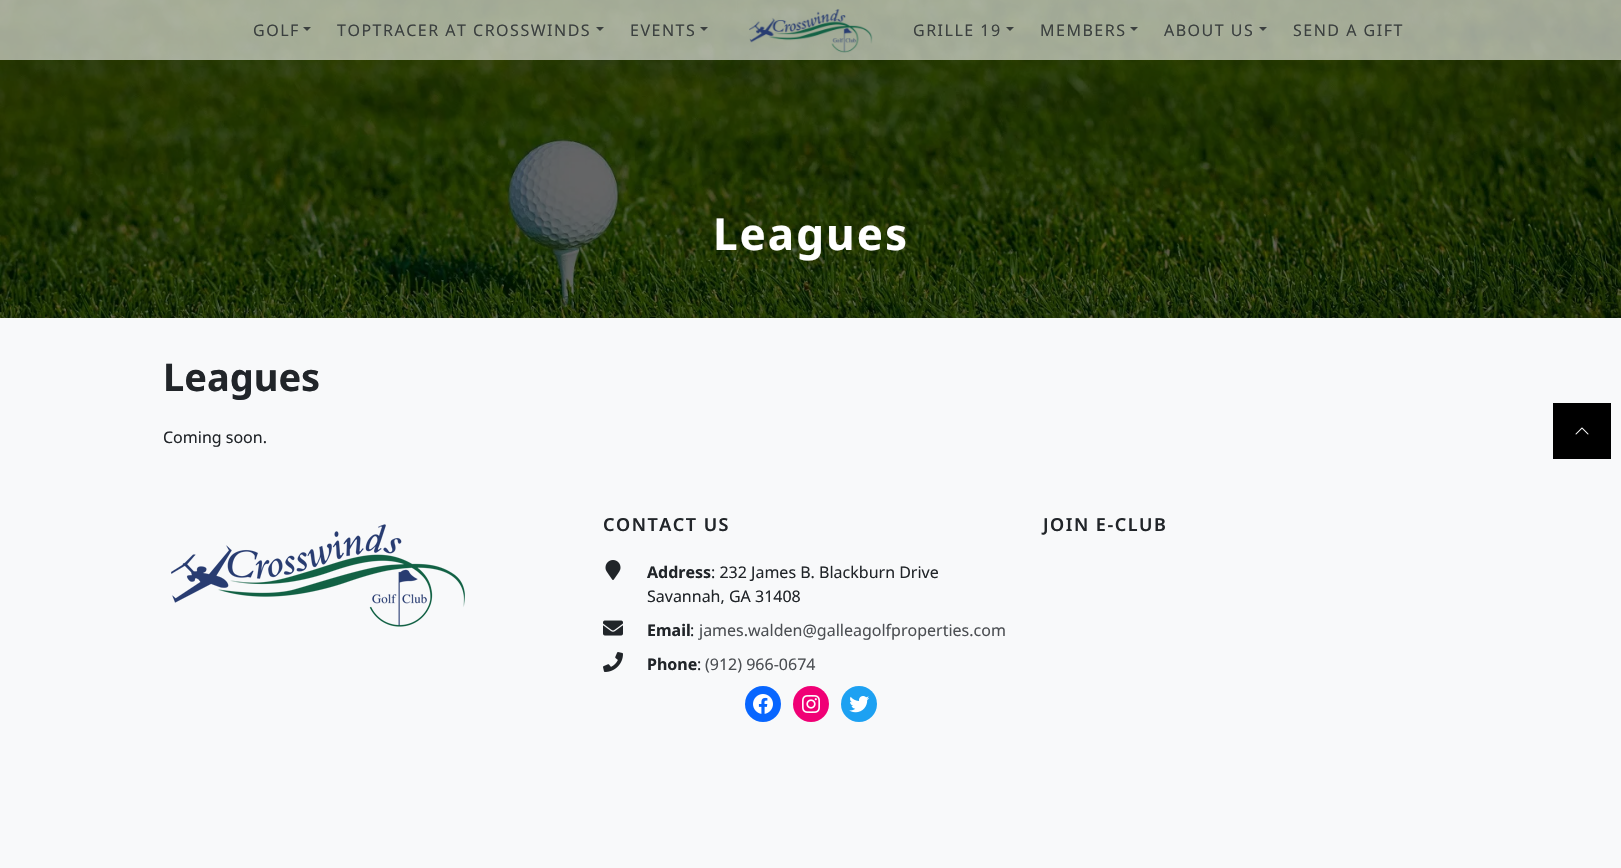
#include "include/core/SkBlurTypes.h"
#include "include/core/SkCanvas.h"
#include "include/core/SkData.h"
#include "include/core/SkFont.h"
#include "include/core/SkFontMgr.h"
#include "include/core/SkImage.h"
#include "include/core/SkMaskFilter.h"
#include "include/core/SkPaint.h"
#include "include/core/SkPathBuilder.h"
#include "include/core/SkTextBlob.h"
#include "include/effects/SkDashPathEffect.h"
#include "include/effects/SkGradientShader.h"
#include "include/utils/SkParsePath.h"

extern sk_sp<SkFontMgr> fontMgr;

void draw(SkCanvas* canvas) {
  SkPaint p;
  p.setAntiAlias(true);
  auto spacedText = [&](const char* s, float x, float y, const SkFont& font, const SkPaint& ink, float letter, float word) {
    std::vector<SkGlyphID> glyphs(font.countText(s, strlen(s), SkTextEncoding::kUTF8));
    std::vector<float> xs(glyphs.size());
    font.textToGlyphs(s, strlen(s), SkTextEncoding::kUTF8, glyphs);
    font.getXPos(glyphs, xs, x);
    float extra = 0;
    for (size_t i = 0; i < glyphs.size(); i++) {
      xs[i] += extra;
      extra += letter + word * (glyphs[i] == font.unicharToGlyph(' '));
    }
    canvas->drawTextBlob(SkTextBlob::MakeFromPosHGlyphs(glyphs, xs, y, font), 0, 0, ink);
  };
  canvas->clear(SkColorSetRGB(248, 249, 250));
  canvas->drawImageRect(SkImages::DeferredFromEncodedData(SkData::MakeFromFileName("images/2.png")), SkRect::MakeLTRB(0, 0, 1621, 318), SkSamplingOptions());
  p.setColor(SkColorSetARGB(153, 248, 249, 250));
  canvas->drawRect(SkRect::MakeLTRB(0, 0, 1621, 60), p);
  p.setColor(SkColorSetRGB(59, 64, 63));
  canvas->drawPath(SkPathBuilder().moveTo(303, 27).lineTo(311, 27).lineTo(307, 31).close().detach(), p);
  canvas->drawPath(SkPathBuilder().moveTo(596, 27).lineTo(604, 27).lineTo(600, 31).close().detach(), p);
  p.setColor(SkColorSetRGB(59, 63, 63));
  canvas->drawPath(SkPathBuilder().moveTo(700, 27).lineTo(708, 27).lineTo(704, 31).close().detach(), p);
  canvas->drawImageRect(SkImages::DeferredFromEncodedData(SkData::MakeFromFileName("images/1.png")), SkRect::MakeLTRB(749, 9, 873, 53), SkSamplingOptions());
  p.setColor(SkColorSetRGB(59, 64, 63));
  canvas->drawPath(SkPathBuilder().moveTo(1006, 27).lineTo(1014, 27).lineTo(1010, 31).close().detach(), p);
  canvas->drawPath(SkPathBuilder().moveTo(1130, 27).lineTo(1138, 27).lineTo(1134, 31).close().detach(), p);
  p.setColor(SkColorSetRGB(59, 63, 63));
  canvas->drawPath(SkPathBuilder().moveTo(1259, 27).lineTo(1267, 27).lineTo(1263, 31).close().detach(), p);
  p.setColor(SK_ColorBLACK);
  canvas->drawRect(SkRect::MakeLTRB(1553, 403, 1611, 459), p);
  canvas->drawImageRect(SkImages::DeferredFromEncodedData(SkData::MakeFromFileName("images/3.png")), SkRect::MakeLTRB(1575, 427, 1589, 435), SkSamplingOptions());
  canvas->drawImageRect(SkImages::DeferredFromEncodedData(SkData::MakeFromFileName("images/4.png")), SkRect::MakeLTRB(171, 524, 465, 627), SkSamplingOptions());
  canvas->drawImageRect(SkImages::DeferredFromEncodedData(SkData::MakeFromFileName("images/5.png")), SkRect::MakeLTRB(605, 560, 621, 580), SkSamplingOptions());
  canvas->drawImageRect(SkImages::DeferredFromEncodedData(SkData::MakeFromFileName("images/6.png")), SkRect::MakeLTRB(603, 620, 623, 636), SkSamplingOptions());
  canvas->drawImageRect(SkImages::DeferredFromEncodedData(SkData::MakeFromFileName("images/7.png")), SkRect::MakeLTRB(603, 652, 623, 672), SkSamplingOptions());
  p.setColor(SkColorSetRGB(8, 102, 255));
  canvas->drawCircle(763, 704, 18, p);
  canvas->drawImageRect(SkImages::DeferredFromEncodedData(SkData::MakeFromFileName("images/8.png")), SkRect::MakeLTRB(753, 694, 773, 714), SkSamplingOptions());
  p.setColor(SkColorSetRGB(240, 0, 117));
  canvas->drawCircle(811, 704, 18, p);
  canvas->drawImageRect(SkImages::DeferredFromEncodedData(SkData::MakeFromFileName("images/9.png")), SkRect::MakeLTRB(802, 695, 820, 713), SkSamplingOptions());
  p.setColor(SkColorSetRGB(29, 161, 242));
  canvas->drawCircle(859, 704, 18, p);
  canvas->drawImageRect(SkImages::DeferredFromEncodedData(SkData::MakeFromFileName("images/10.png")), SkRect::MakeLTRB(849, 696, 869, 713), SkSamplingOptions());
  SkFont font1(fontMgr->matchFamilyStyle("Noto Sans", SkFontStyle::Normal()), 16);
  font1.setSubpixel(true);
  p.setColor(SkColorSetRGB(59, 64, 63));
  spacedText("GOLF", 253, 36, font1, p, 1.5f, 0);
  spacedText("TOPTRACER AT CROSSWINDS", 337, 36, font1, p, 1.5f, 0);
  spacedText("EVENTS", 630, 36, font1, p, 1.5f, 0);
  spacedText("GRILLE 19", 913, 36, font1, p, 1.5f, 0);
  spacedText("MEMBERS", 1040, 36, font1, p, 1.5f, 0);
  spacedText("ABOUT US", 1164, 36, font1, p, 1.5f, 0);
  spacedText("SEND A GIFT", 1293, 36, font1, p, 1.5f, 0);
  SkFont font2(fontMgr->matchFamilyStyle("Noto Sans", SkFontStyle::Bold()), 44);
  font2.setSubpixel(true);
  p.setColor(SK_ColorWHITE);
  spacedText("Leagues", 713, 250, font2, p, 2, 0);
  SkFont font3(fontMgr->matchFamilyStyle("Noto Sans", SkFontStyle::Bold()), 38);
  font3.setSubpixel(true);
  p.setColor(SkColorSetRGB(33, 37, 41));
  canvas->drawString("Leagues", 163, 391, font3, p);
  canvas->drawString("Coming soon.", 163, 443, font1, p);
  SkFont font4(fontMgr->matchFamilyStyle("Noto Sans", SkFontStyle(600, SkFontStyle::kNormal_Width, SkFontStyle::kUpright_Slant)), 18);
  font4.setSubpixel(true);
  spacedText("CONTACT US", 603, 531, font4, p, 1.5f, 0);
  SkFont font5(fontMgr->matchFamilyStyle("Noto Sans", SkFontStyle::Bold()), 16);
  font5.setSubpixel(true);
  canvas->drawString("Address", 647, 578, font5, p);
  canvas->drawString(": 232 James B. Blackburn Drive", 711, 578, font1, p);
  canvas->drawString("Savannah, GA 31408", 647, 602, font1, p);
  canvas->drawString("Email", 647, 636, font5, p);
  canvas->drawString(":", 690, 636, font1, p);
  p.setColor(SkColorSetRGB(76, 79, 83));
  canvas->drawString("james.walden@galleagolfproperties.com", 699, 636, font1, p);
  p.setColor(SkColorSetRGB(33, 37, 41));
  canvas->drawString("Phone", 647, 670, font5, p);
  canvas->drawString(":", 697, 670, font1, p);
  p.setColor(SkColorSetRGB(76, 79, 83));
  canvas->drawString("(912) 966-0674", 705, 670, font1, p);
  p.setColor(SkColorSetRGB(33, 37, 41));
  spacedText("JOIN E-CLUB", 1043, 531, font4, p, 1.5f, 0);
}
